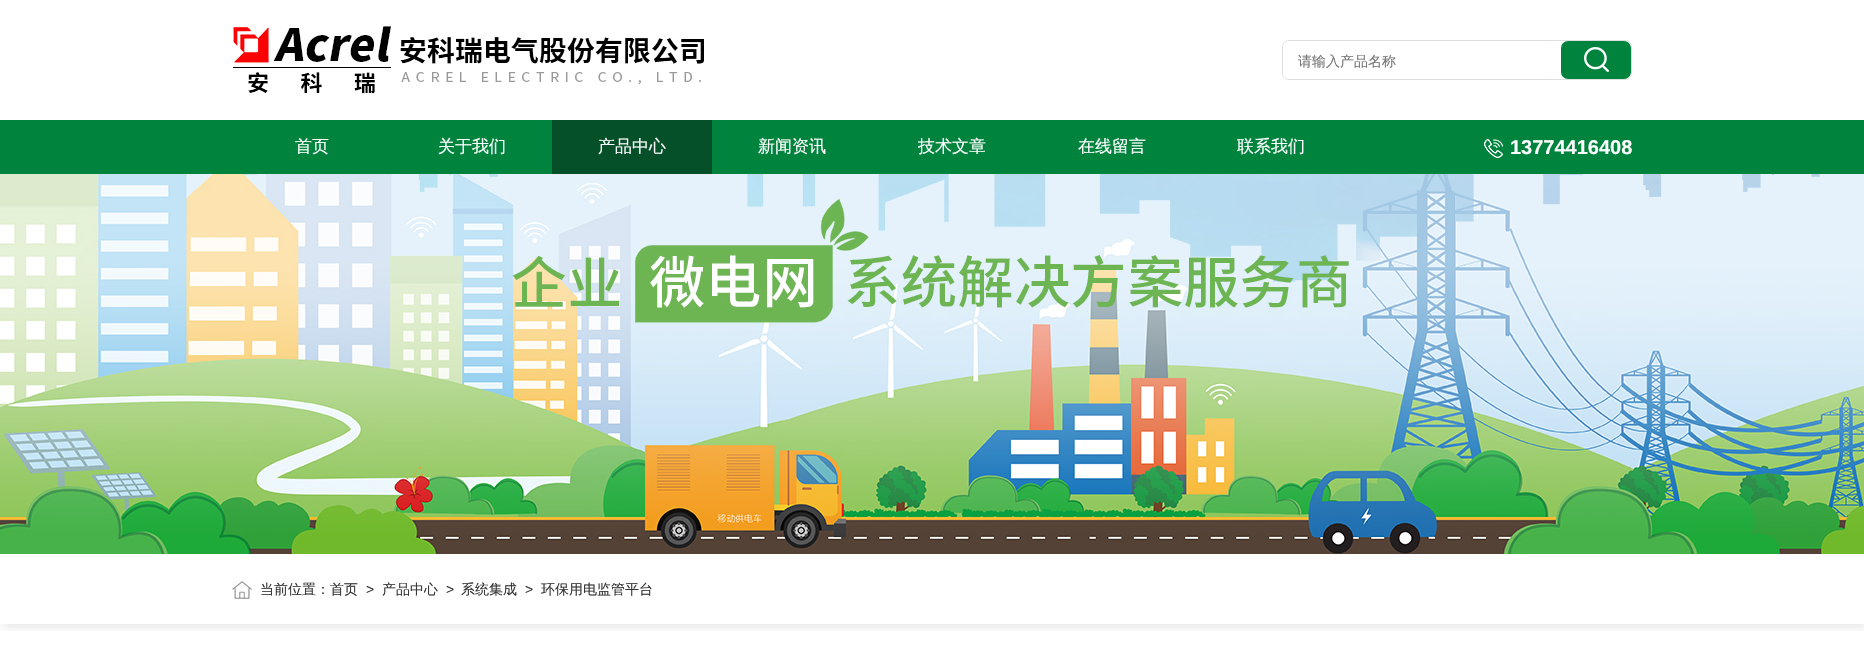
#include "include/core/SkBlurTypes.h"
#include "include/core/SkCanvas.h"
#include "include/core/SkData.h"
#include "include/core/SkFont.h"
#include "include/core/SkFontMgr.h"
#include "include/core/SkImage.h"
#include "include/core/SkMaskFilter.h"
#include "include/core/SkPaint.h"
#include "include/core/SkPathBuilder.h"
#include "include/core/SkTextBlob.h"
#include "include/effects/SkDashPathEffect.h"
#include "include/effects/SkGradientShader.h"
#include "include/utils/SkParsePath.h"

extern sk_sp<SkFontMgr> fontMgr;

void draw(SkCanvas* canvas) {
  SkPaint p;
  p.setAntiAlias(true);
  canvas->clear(SK_ColorWHITE);
  canvas->drawImageRect(SkImages::DeferredFromEncodedData(SkData::MakeFromFileName("images/1.png")), SkRect::MakeLTRB(233, 26, 704, 94), SkSamplingOptions());
  p.setStyle(SkPaint::kStroke_Style);
  p.setStrokeWidth(1);
  p.setColor(SkColorSetRGB(222, 222, 222));
  canvas->drawRoundRect(SkRect::MakeLTRB(1282.5f, 40.5f, 1631.5f, 79.5f), 6.5f, 6.5f, p);
  p.setStyle(SkPaint::kFill_Style);
  p.setColor(SK_ColorWHITE);
  canvas->drawPath(SkPathBuilder().moveTo(1289, 41).lineTo(1561, 41).lineTo(1561, 79).lineTo(1289, 79).cubicTo(1285.5f, 79, 1283, 76.5f, 1283, 73).lineTo(1283, 47).cubicTo(1283, 43.5f, 1285.5f, 41, 1289, 41).close().detach(), p);
  canvas->save();
  canvas->clipPath(SkPathBuilder().moveTo(1289, 41).lineTo(1625, 41).cubicTo(1628.5f, 41, 1631, 43.5f, 1631, 47).lineTo(1631, 73).cubicTo(1631, 76.5f, 1628.5f, 79, 1625, 79).lineTo(1289, 79).cubicTo(1285.5f, 79, 1283, 76.5f, 1283, 73).lineTo(1283, 47).cubicTo(1283, 43.5f, 1285.5f, 41, 1289, 41).close().detach(), true);
  p.setColor(SkColorSetRGB(0, 131, 61));
  canvas->drawRoundRect(SkRect::MakeLTRB(1561, 41, 1631, 79), 7, 7, p);
  canvas->restore();
  canvas->drawImageRect(SkImages::DeferredFromEncodedData(SkData::MakeFromFileName("images/2.png")), SkRect::MakeLTRB(1584, 47, 1609, 72), SkSamplingOptions());
  canvas->drawRect(SkRect::MakeLTRB(0, 120, 1864, 174), p);
  p.setColor(SkColorSetRGB(5, 80, 40));
  canvas->drawRect(SkRect::MakeLTRB(552, 120, 712, 174), p);
  canvas->drawImageRect(SkImages::DeferredFromEncodedData(SkData::MakeFromFileName("images/3.png")), SkRect::MakeLTRB(1484, 139, 1503, 158), SkSamplingOptions());
  canvas->save();
  canvas->clipRect(SkRect::MakeLTRB(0, 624, 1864, 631));
  p.setColor(SkColorSetARGB(26, 0, 0, 0));
  p.setMaskFilter(SkMaskFilter::MakeBlur(kNormal_SkBlurStyle, 5));
  canvas->drawRect(SkRect::MakeLTRB(3, 557, 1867, 627), p);
  p.setMaskFilter(nullptr);
  canvas->restore();
  canvas->drawImageRect(SkImages::DeferredFromEncodedData(SkData::MakeFromFileName("images/4.png")), SkRect::MakeLTRB(0, 174, 1864, 554), SkSamplingOptions());
  canvas->drawImageRect(SkImages::DeferredFromEncodedData(SkData::MakeFromFileName("images/5.png")), SkRect::MakeLTRB(232, 581, 252, 599), SkSamplingOptions());
  SkFont font1(fontMgr->matchFamilyStyle("WenQuanYi Zen Hei", SkFontStyle(500, SkFontStyle::kNormal_Width, SkFontStyle::kUpright_Slant)), 14);
  font1.setSubpixel(true);
  p.setColor(SkColorSetRGB(117, 117, 117));
  canvas->drawString("请输入产品名称", 1298, 66, font1, p);
  SkFont font2(fontMgr->matchFamilyStyle("WenQuanYi Zen Hei", SkFontStyle(500, SkFontStyle::kNormal_Width, SkFontStyle::kUpright_Slant)), 17);
  font2.setSubpixel(true);
  p.setColor(SK_ColorWHITE);
  canvas->drawString("首页", 295, 152, font2, p);
  canvas->drawString("关于我们", 438, 152, font2, p);
  canvas->drawString("产品中心", 598, 152, font2, p);
  canvas->drawString("新闻资讯", 758, 152, font2, p);
  canvas->drawString("技术文章", 918, 152, font2, p);
  canvas->drawString("在线留言", 1078, 152, font2, p);
  canvas->drawString("联系我们", 1237, 152, font2, p);
  SkFont font3(fontMgr->matchFamilyStyle("Liberation Sans", SkFontStyle::Bold()), 20);
  font3.setSubpixel(true);
  canvas->drawString("13774416408", 1510, 154, font3, p);
  p.setColor(SkColorSetRGB(51, 51, 51));
  canvas->drawString("当前位置：首页", 260, 594, font1, p);
  SkFont font4(fontMgr->matchFamilyStyle("Liberation Sans", SkFontStyle::Normal()), 14);
  font4.setSubpixel(true);
  canvas->drawString(">", 366, 594, font4, p);
  canvas->drawString("产品中心", 382, 594, font1, p);
  canvas->drawString(">", 446, 594, font4, p);
  canvas->drawString("系统集成", 461, 594, font1, p);
  canvas->drawString(">", 525, 594, font4, p);
  canvas->drawString("环保用电监管平台", 541, 594, font1, p);
}
